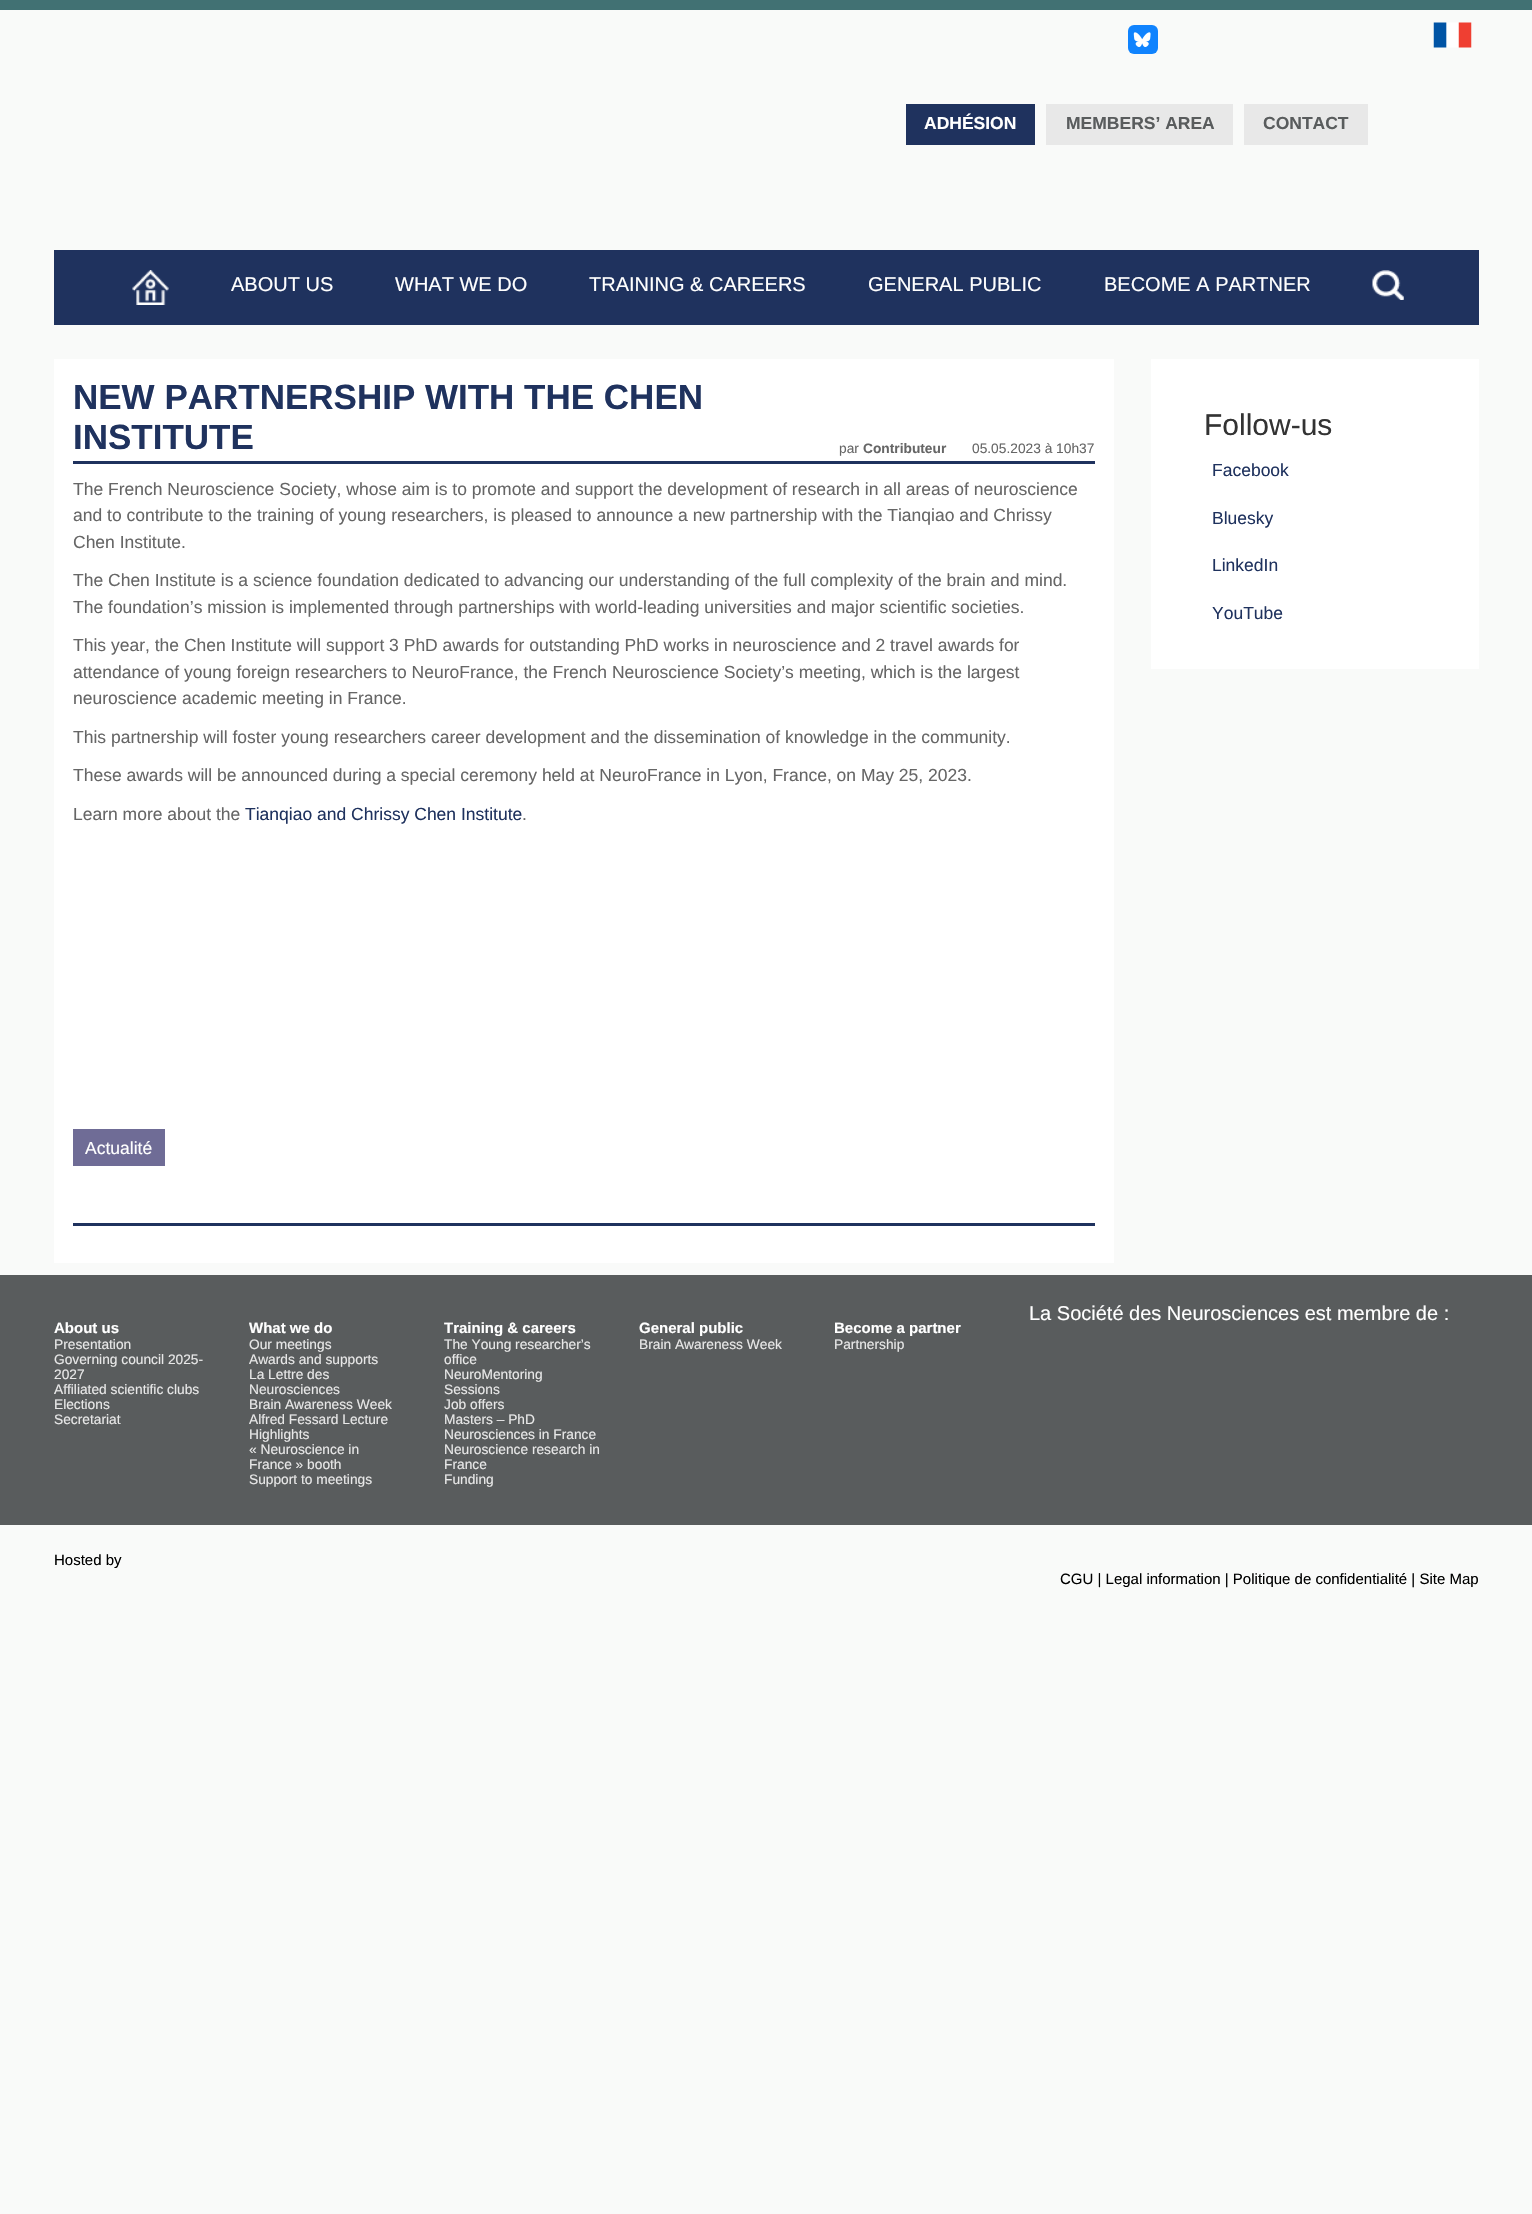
#include "include/core/SkBlurTypes.h"
#include "include/core/SkCanvas.h"
#include "include/core/SkData.h"
#include "include/core/SkFont.h"
#include "include/core/SkFontMgr.h"
#include "include/core/SkImage.h"
#include "include/core/SkMaskFilter.h"
#include "include/core/SkPaint.h"
#include "include/core/SkPathBuilder.h"
#include "include/core/SkTextBlob.h"
#include "include/effects/SkDashPathEffect.h"
#include "include/effects/SkGradientShader.h"
#include "include/utils/SkParsePath.h"

extern sk_sp<SkFontMgr> fontMgr;

void draw(SkCanvas* canvas) {
  SkPaint p;
  p.setAntiAlias(true);
  canvas->clear(SkColorSetRGB(249, 250, 249));
  p.setColor(SkColorSetRGB(65, 113, 115));
  canvas->drawRect(SkRect::MakeLTRB(0, 0, 1532, 10), p);
  p.setColor(SkColorSetRGB(16, 131, 254));
  canvas->drawRoundRect(SkRect::MakeLTRB(1128, 25, 1158, 54), 6, 6, p);
  canvas->drawImageRect(SkImages::DeferredFromEncodedData(SkData::MakeFromFileName("images/1.png")), SkRect::MakeLTRB(1133, 32, 1151, 47), SkSamplingOptions());
  canvas->drawImageRect(SkImages::DeferredFromEncodedData(SkData::MakeFromFileName("images/2.png")), SkRect::MakeLTRB(1433, 22, 1472, 48), SkSamplingOptions());
  p.setColor(SkColorSetRGB(31, 50, 94));
  canvas->drawRect(SkRect::MakeLTRB(906, 104, 1035, 145), p);
  p.setColor(SkColorSetRGB(232, 232, 232));
  canvas->drawRect(SkRect::MakeLTRB(1046, 104, 1233, 145), p);
  canvas->drawRect(SkRect::MakeLTRB(1244, 104, 1368, 145), p);
  p.setColor(SkColorSetRGB(31, 50, 94));
  canvas->drawRect(SkRect::MakeLTRB(54, 250, 1479, 325), p);
  canvas->drawImageRect(SkImages::DeferredFromEncodedData(SkData::MakeFromFileName("images/3.png")), SkRect::MakeLTRB(132, 270, 169, 305), SkSamplingOptions());
  canvas->drawImageRect(SkImages::DeferredFromEncodedData(SkData::MakeFromFileName("images/4.png")), SkRect::MakeLTRB(1372, 270, 1404, 300), SkSamplingOptions());
  p.setColor(SK_ColorWHITE);
  canvas->drawRect(SkRect::MakeLTRB(54, 359, 1114, 1263), p);
  p.setColor(SkColorSetRGB(31, 50, 94));
  canvas->drawRect(SkRect::MakeLTRB(73, 461, 1095, 464), p);
  p.setColor(SkColorSetRGB(111, 108, 150));
  canvas->drawRect(SkRect::MakeLTRB(73, 1129, 165, 1166), p);
  p.setColor(SkColorSetRGB(31, 50, 94));
  canvas->drawRect(SkRect::MakeLTRB(73, 1223, 1095, 1226), p);
  p.setColor(SK_ColorWHITE);
  canvas->drawRect(SkRect::MakeLTRB(1151, 359, 1479, 669), p);
  p.setColor(SkColorSetRGB(89, 92, 93));
  canvas->drawRect(SkRect::MakeLTRB(0, 1275, 1532, 1525), p);
  SkFont font1(fontMgr->matchFamilyStyle("Liberation Sans", SkFontStyle::Bold()), 17.5f);
  font1.setSubpixel(true);
  p.setColor(SK_ColorWHITE);
  canvas->drawString("ADHÉSION", 924, 129, font1, p);
  p.setColor(SkColorSetRGB(89, 92, 93));
  canvas->drawString("MEMBERS’ AREA", 1066, 129, font1, p);
  canvas->drawString("CONTACT", 1263, 129, font1, p);
  SkFont font2(fontMgr->matchFamilyStyle("Liberation Sans", SkFontStyle::Normal()), 20);
  font2.setSubpixel(true);
  p.setColor(SK_ColorWHITE);
  canvas->drawString("ABOUT US", 231, 291, font2, p);
  canvas->drawString("WHAT WE DO", 395, 291, font2, p);
  canvas->drawString("TRAINING & CAREERS", 589, 291, font2, p);
  canvas->drawString("GENERAL PUBLIC", 868, 291, font2, p);
  canvas->drawString("BECOME A PARTNER", 1104, 291, font2, p);
  SkFont font3(fontMgr->matchFamilyStyle("Liberation Sans", SkFontStyle::Bold()), 35);
  font3.setSubpixel(true);
  p.setColor(SkColorSetRGB(31, 50, 94));
  canvas->drawString("NEW PARTNERSHIP WITH THE CHEN", 73, 409, font3, p);
  canvas->drawString("INSTITUTE", 73, 449, font3, p);
  SkFont font4(fontMgr->matchFamilyStyle("Liberation Sans", SkFontStyle::Normal()), 13.75f);
  font4.setSubpixel(true);
  p.setColor(SkColorSetRGB(102, 102, 102));
  canvas->drawString("par", 839, 453, font4, p);
  SkFont font5(fontMgr->matchFamilyStyle("Liberation Sans", SkFontStyle::Bold()), 13.75f);
  font5.setSubpixel(true);
  canvas->drawString("Contributeur", 863, 453, font5, p);
  canvas->drawString("05.05.2023 à 10h37", 972, 453, font4, p);
  SkFont font6(fontMgr->matchFamilyStyle("Liberation Sans", SkFontStyle::Normal()), 17.5f);
  font6.setSubpixel(true);
  canvas->drawString("The French Neuroscience Society, whose aim is to promote and support the development of research in all areas of neuroscience", 73, 495, font6, p);
  canvas->drawString("and to contribute to the training of young researchers, is pleased to announce a new partnership with the Tianqiao and Chrissy", 73, 521, font6, p);
  canvas->drawString("Chen Institute.", 73, 548, font6, p);
  canvas->drawString("The Chen Institute is a science foundation dedicated to advancing our understanding of the full complexity of the brain and mind.", 73, 586, font6, p);
  canvas->drawString("The foundation’s mission is implemented through partnerships with world-leading universities and major scientific societies.", 73, 613, font6, p);
  canvas->drawString("This year, the Chen Institute will support 3 PhD awards for outstanding PhD works in neuroscience and 2 travel awards for", 73, 651, font6, p);
  canvas->drawString("attendance of young foreign researchers to NeuroFrance, the French Neuroscience Society’s meeting, which is the largest", 73, 678, font6, p);
  canvas->drawString("neuroscience academic meeting in France.", 73, 704, font6, p);
  canvas->drawString("This partnership will foster young researchers career development and the dissemination of knowledge in the community.", 73, 743, font6, p);
  canvas->drawString("These awards will be announced during a special ceremony held at NeuroFrance in Lyon, France, on May 25, 2023.", 73, 781, font6, p);
  canvas->drawString("Learn more about the", 73, 820, font6, p);
  p.setColor(SkColorSetRGB(31, 50, 94));
  canvas->drawString("Tianqiao and Chrissy Chen Institute", 245, 820, font6, p);
  p.setColor(SkColorSetRGB(102, 102, 102));
  canvas->drawString(".", 522, 820, font6, p);
  p.setColor(SK_ColorWHITE);
  canvas->drawString("Actualité", 85, 1154, font6, p);
  SkFont font7(fontMgr->matchFamilyStyle("Liberation Sans", SkFontStyle::Normal()), 30);
  font7.setSubpixel(true);
  p.setColor(SkColorSetRGB(51, 51, 51));
  canvas->drawString("Follow-us", 1204, 435, font7, p);
  p.setColor(SkColorSetRGB(31, 50, 94));
  canvas->drawString("Facebook", 1212, 476, font6, p);
  canvas->drawString("Bluesky", 1212, 524, font6, p);
  canvas->drawString("LinkedIn", 1212, 571, font6, p);
  canvas->drawString("YouTube", 1212, 619, font6, p);
  p.setColor(SK_ColorWHITE);
  canvas->drawString("La Société des Neurosciences est membre de :", 1029, 1320, font2, p);
  SkFont font8(fontMgr->matchFamilyStyle("Liberation Sans", SkFontStyle::Bold()), 15);
  font8.setSubpixel(true);
  canvas->drawString("About us", 54, 1333, font8, p);
  p.setColor(SkColorSetRGB(232, 232, 232));
  canvas->drawString("Presentation", 54, 1349, font4, p);
  canvas->drawString("Governing council 2025-", 54, 1364, font4, p);
  canvas->drawString("2027", 54, 1379, font4, p);
  canvas->drawString("Affiliated scientific clubs", 54, 1394, font4, p);
  canvas->drawString("Elections", 54, 1409, font4, p);
  canvas->drawString("Secretariat", 54, 1424, font4, p);
  p.setColor(SK_ColorWHITE);
  canvas->drawString("What we do", 249, 1333, font8, p);
  p.setColor(SkColorSetRGB(232, 232, 232));
  canvas->drawString("Our meetings", 249, 1349, font4, p);
  canvas->drawString("Awards and supports", 249, 1364, font4, p);
  canvas->drawString("La Lettre des", 249, 1379, font4, p);
  canvas->drawString("Neurosciences", 249, 1394, font4, p);
  canvas->drawString("Brain Awareness Week", 249, 1409, font4, p);
  canvas->drawString("Alfred Fessard Lecture", 249, 1424, font4, p);
  canvas->drawString("Highlights", 249, 1439, font4, p);
  canvas->drawString("« Neuroscience in", 249, 1454, font4, p);
  canvas->drawString("France » booth", 249, 1469, font4, p);
  canvas->drawString("Support to meetings", 249, 1484, font4, p);
  canvas->save();
  canvas->clipRect(SkRect::MakeLTRB(444, 1313, 601, 1336));
  p.setColor(SK_ColorWHITE);
  canvas->drawString("Training & careers", 444, 1333, font8, p);
  canvas->restore();
  p.setColor(SkColorSetRGB(232, 232, 232));
  canvas->drawString("The Young researcher’s", 444, 1349, font4, p);
  canvas->drawString("office", 444, 1364, font4, p);
  canvas->drawString("NeuroMentoring", 444, 1379, font4, p);
  canvas->drawString("Sessions", 444, 1394, font4, p);
  canvas->drawString("Job offers", 444, 1409, font4, p);
  canvas->drawString("Masters – PhD", 444, 1424, font4, p);
  canvas->drawString("Neurosciences in France", 444, 1439, font4, p);
  canvas->drawString("Neuroscience research in", 444, 1454, font4, p);
  canvas->drawString("France", 444, 1469, font4, p);
  canvas->drawString("Funding", 444, 1484, font4, p);
  p.setColor(SK_ColorWHITE);
  canvas->drawString("General public", 639, 1333, font8, p);
  p.setColor(SkColorSetRGB(232, 232, 232));
  canvas->drawString("Brain Awareness Week", 639, 1349, font4, p);
  p.setColor(SK_ColorWHITE);
  canvas->drawString("Become a partner", 834, 1333, font8, p);
  p.setColor(SkColorSetRGB(232, 232, 232));
  canvas->drawString("Partnership", 834, 1349, font4, p);
  SkFont font9(fontMgr->matchFamilyStyle("Liberation Sans", SkFontStyle::Normal()), 15);
  font9.setSubpixel(true);
  p.setColor(SK_ColorBLACK);
  canvas->drawString("Hosted by", 54, 1565, font9, p);
  canvas->drawString("CGU | Legal information | Politique de confidentialité | Site Map", 1060, 1584, font9, p);
}
